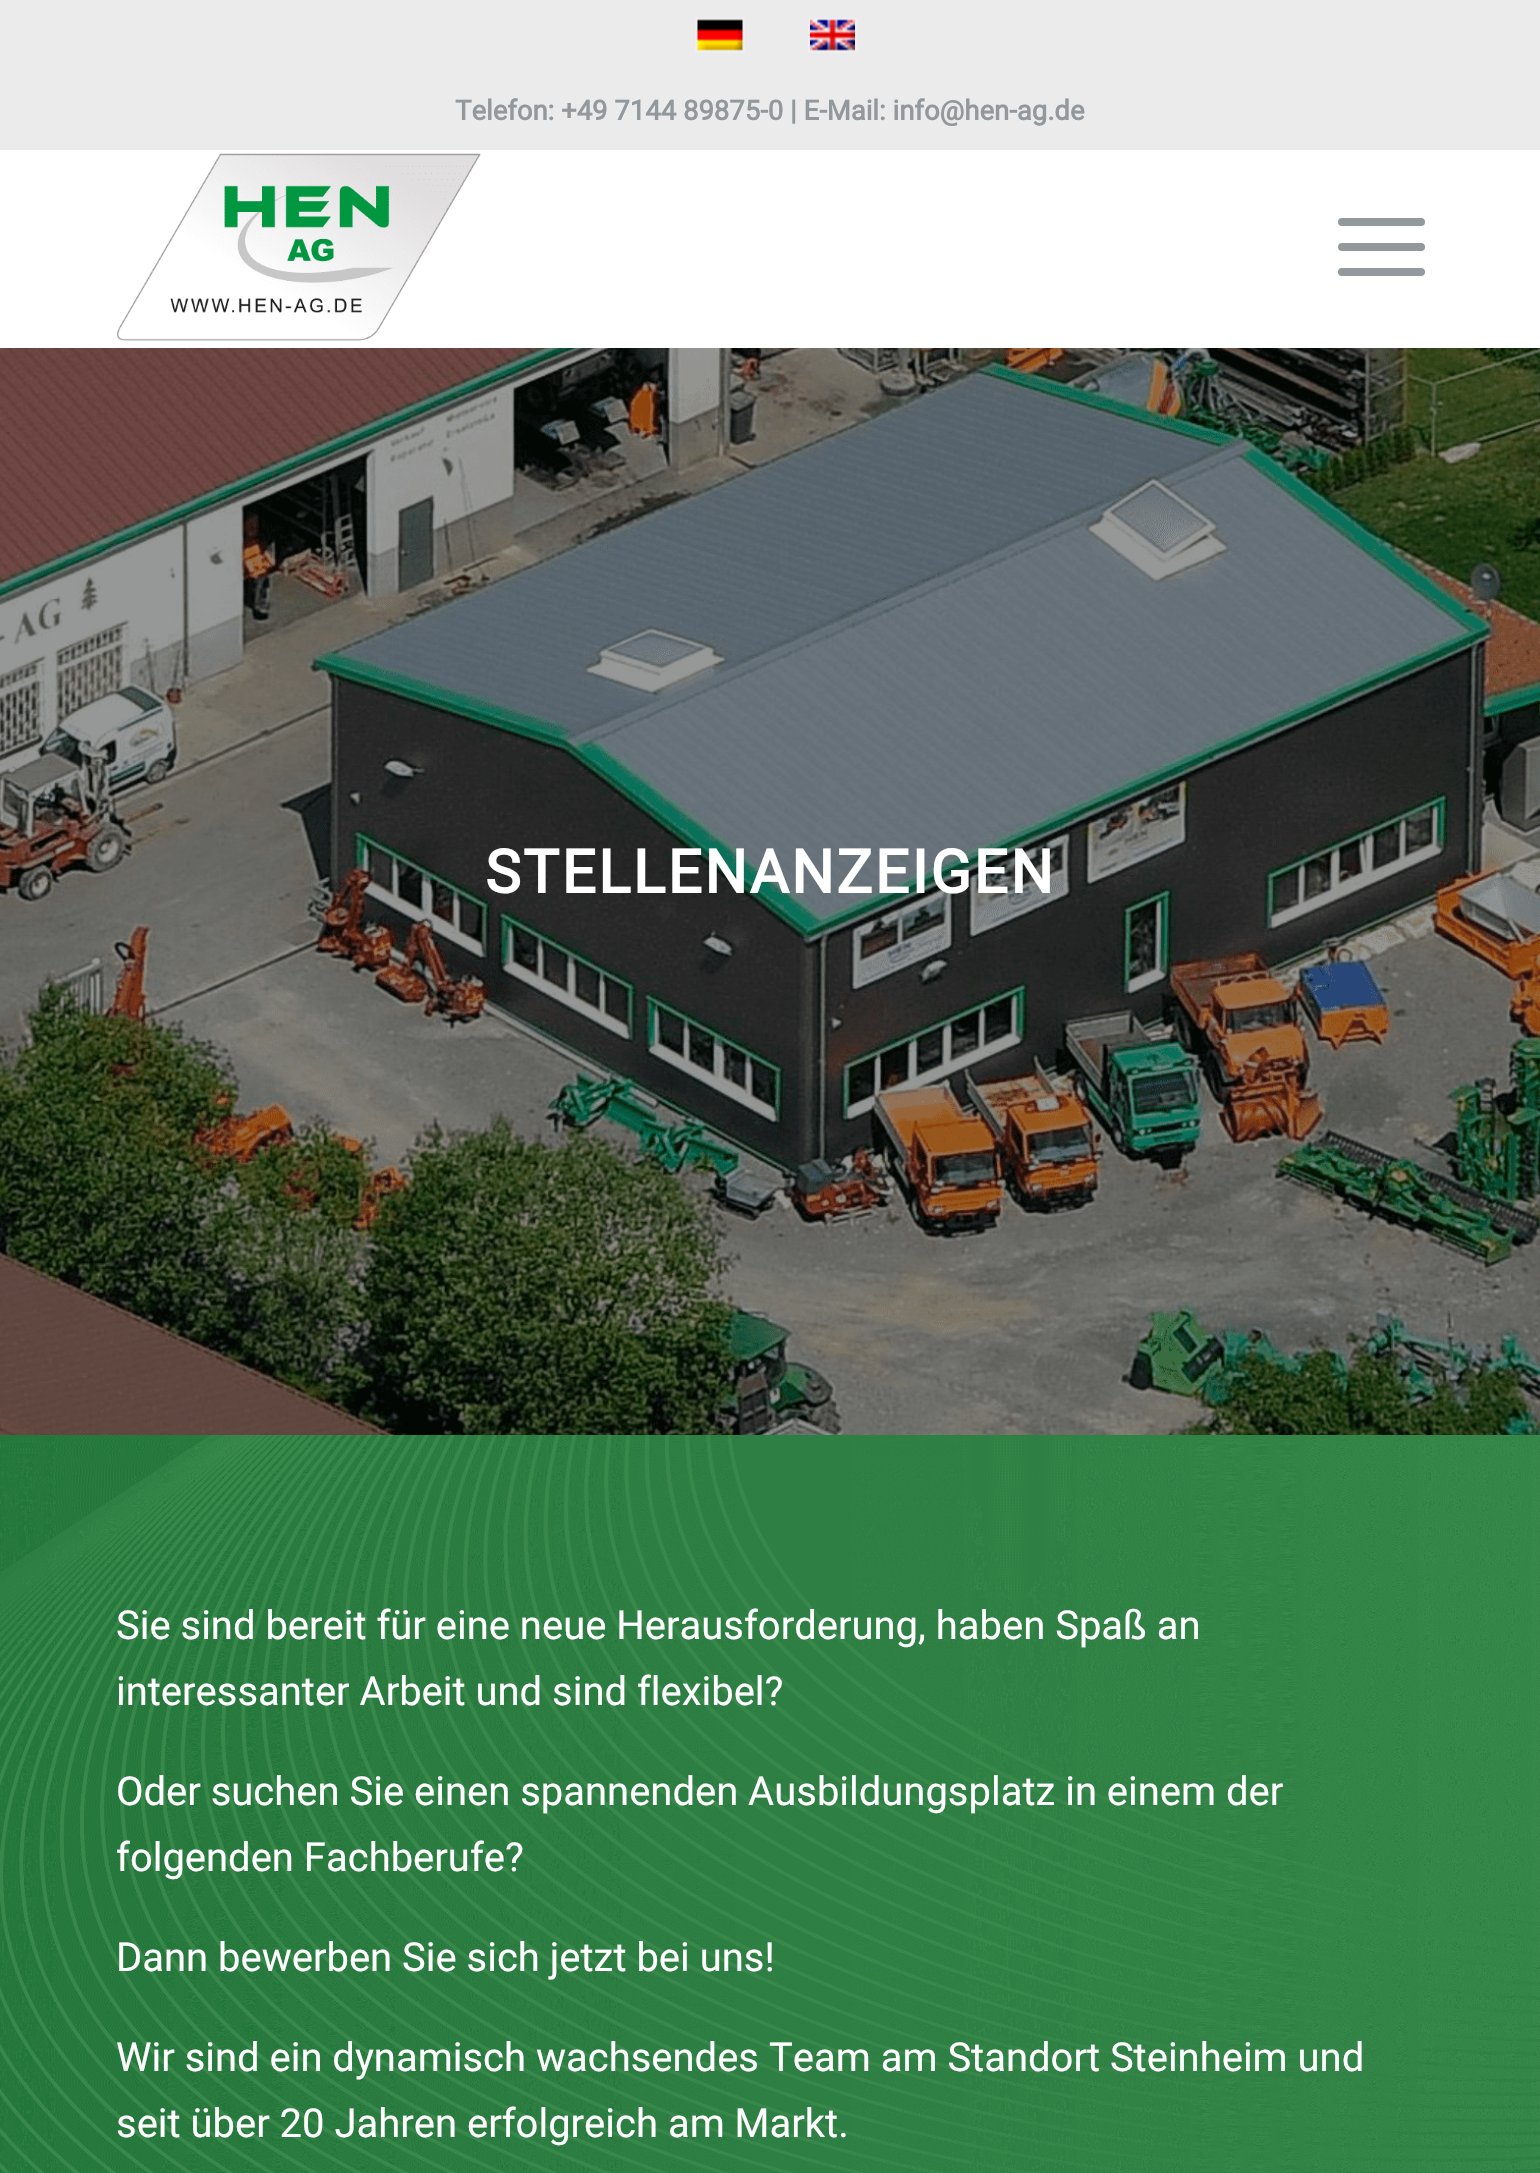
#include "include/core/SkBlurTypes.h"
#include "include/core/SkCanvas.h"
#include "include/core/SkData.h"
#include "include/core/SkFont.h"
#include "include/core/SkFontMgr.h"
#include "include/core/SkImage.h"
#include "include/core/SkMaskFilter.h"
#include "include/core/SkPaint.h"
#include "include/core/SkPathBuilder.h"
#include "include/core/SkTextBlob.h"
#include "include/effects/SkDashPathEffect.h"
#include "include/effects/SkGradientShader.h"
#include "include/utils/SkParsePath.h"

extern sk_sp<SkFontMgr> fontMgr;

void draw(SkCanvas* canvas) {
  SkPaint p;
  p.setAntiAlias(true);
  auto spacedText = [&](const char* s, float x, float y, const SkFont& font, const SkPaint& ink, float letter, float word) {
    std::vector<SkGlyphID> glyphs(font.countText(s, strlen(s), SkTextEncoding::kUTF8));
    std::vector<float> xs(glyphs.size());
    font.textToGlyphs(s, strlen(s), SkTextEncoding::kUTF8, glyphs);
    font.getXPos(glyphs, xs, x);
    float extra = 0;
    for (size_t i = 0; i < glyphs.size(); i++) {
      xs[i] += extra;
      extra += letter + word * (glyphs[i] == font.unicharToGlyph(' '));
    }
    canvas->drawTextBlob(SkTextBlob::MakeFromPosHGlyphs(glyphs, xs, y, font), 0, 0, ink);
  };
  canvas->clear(SK_ColorWHITE);
  p.setColor(SkColorSetRGB(235, 235, 235));
  canvas->drawRect(SkRect::MakeLTRB(0, 0, 1540, 150), p);
  p.setStyle(SkPaint::kStroke_Style);
  p.setStrokeWidth(3);
  p.setColor(SkColorSetRGB(239, 239, 239));
  canvas->drawRect(SkRect::MakeLTRB(696.5f, 19.5f, 743.5f, 51.5f), p);
  canvas->drawImageRect(SkImages::DeferredFromEncodedData(SkData::MakeFromFileName("images/1.png")), SkRect::MakeLTRB(697, 19, 743, 51), SkSamplingOptions());
  canvas->drawRect(SkRect::MakeLTRB(809.5f, 19.5f, 856.5f, 51.5f), p);
  canvas->drawImageRect(SkImages::DeferredFromEncodedData(SkData::MakeFromFileName("images/2.png")), SkRect::MakeLTRB(810, 19, 855, 51), SkSamplingOptions());
  canvas->drawImageRect(SkImages::DeferredFromEncodedData(SkData::MakeFromFileName("images/3.png")), SkRect::MakeLTRB(116, 153, 481, 341), SkSamplingOptions());
  p.setStyle(SkPaint::kFill_Style);
  p.setColor(SkColorSetRGB(146, 152, 155));
  canvas->drawRoundRect(SkRect::MakeLTRB(1338, 243, 1425, 251), 4, 4, p);
  canvas->drawRoundRect(SkRect::MakeLTRB(1338, 218, 1425, 226), 4, 4, p);
  canvas->drawRoundRect(SkRect::MakeLTRB(1338, 268, 1425, 276), 4, 4, p);
  canvas->drawImageRect(SkImages::DeferredFromEncodedData(SkData::MakeFromFileName("images/4.png")), SkRect::MakeLTRB(0, 348, 1540, 1435), SkSamplingOptions());
  canvas->drawImageRect(SkImages::DeferredFromEncodedData(SkData::MakeFromFileName("images/5.png")), SkRect::MakeLTRB(0, 1435, 1540, 2173), SkSamplingOptions());
  SkFont font1(fontMgr->matchFamilyStyle("Roboto", SkFontStyle::Bold()), 27.5f);
  font1.setSubpixel(true);
  canvas->drawString("Telefon: +49 7144 89875-0 | E-Mail: info@hen-ag.de", 455, 120, font1, p);
  SkFont font2(fontMgr->matchFamilyStyle("Roboto", SkFontStyle::Bold()), 60);
  font2.setSubpixel(true);
  p.setColor(SK_ColorWHITE);
  spacedText("STELLENANZEIGEN", 485, 893, font2, p, 2.5f, 0);
  SkFont font3(fontMgr->matchFamilyStyle("Roboto", SkFontStyle::Normal()), 40);
  font3.setSubpixel(true);
  canvas->drawString("Sie sind bereit für eine neue Herausforderung, haben Spaß an", 116, 1639, font3, p);
  canvas->drawString("interessanter Arbeit und sind flexibel?", 116, 1705, font3, p);
  canvas->drawString("Oder suchen Sie einen spannenden Ausbildungsplatz in einem der", 116, 1805, font3, p);
  canvas->drawString("folgenden Fachberufe?", 116, 1871, font3, p);
  canvas->drawString("Dann bewerben Sie sich jetzt bei uns!", 116, 1971, font3, p);
  canvas->drawString("Wir sind ein dynamisch wachsendes Team am Standort Steinheim und", 116, 2071, font3, p);
  canvas->drawString("seit über 20 Jahren erfolgreich am Markt.", 116, 2137, font3, p);
}
